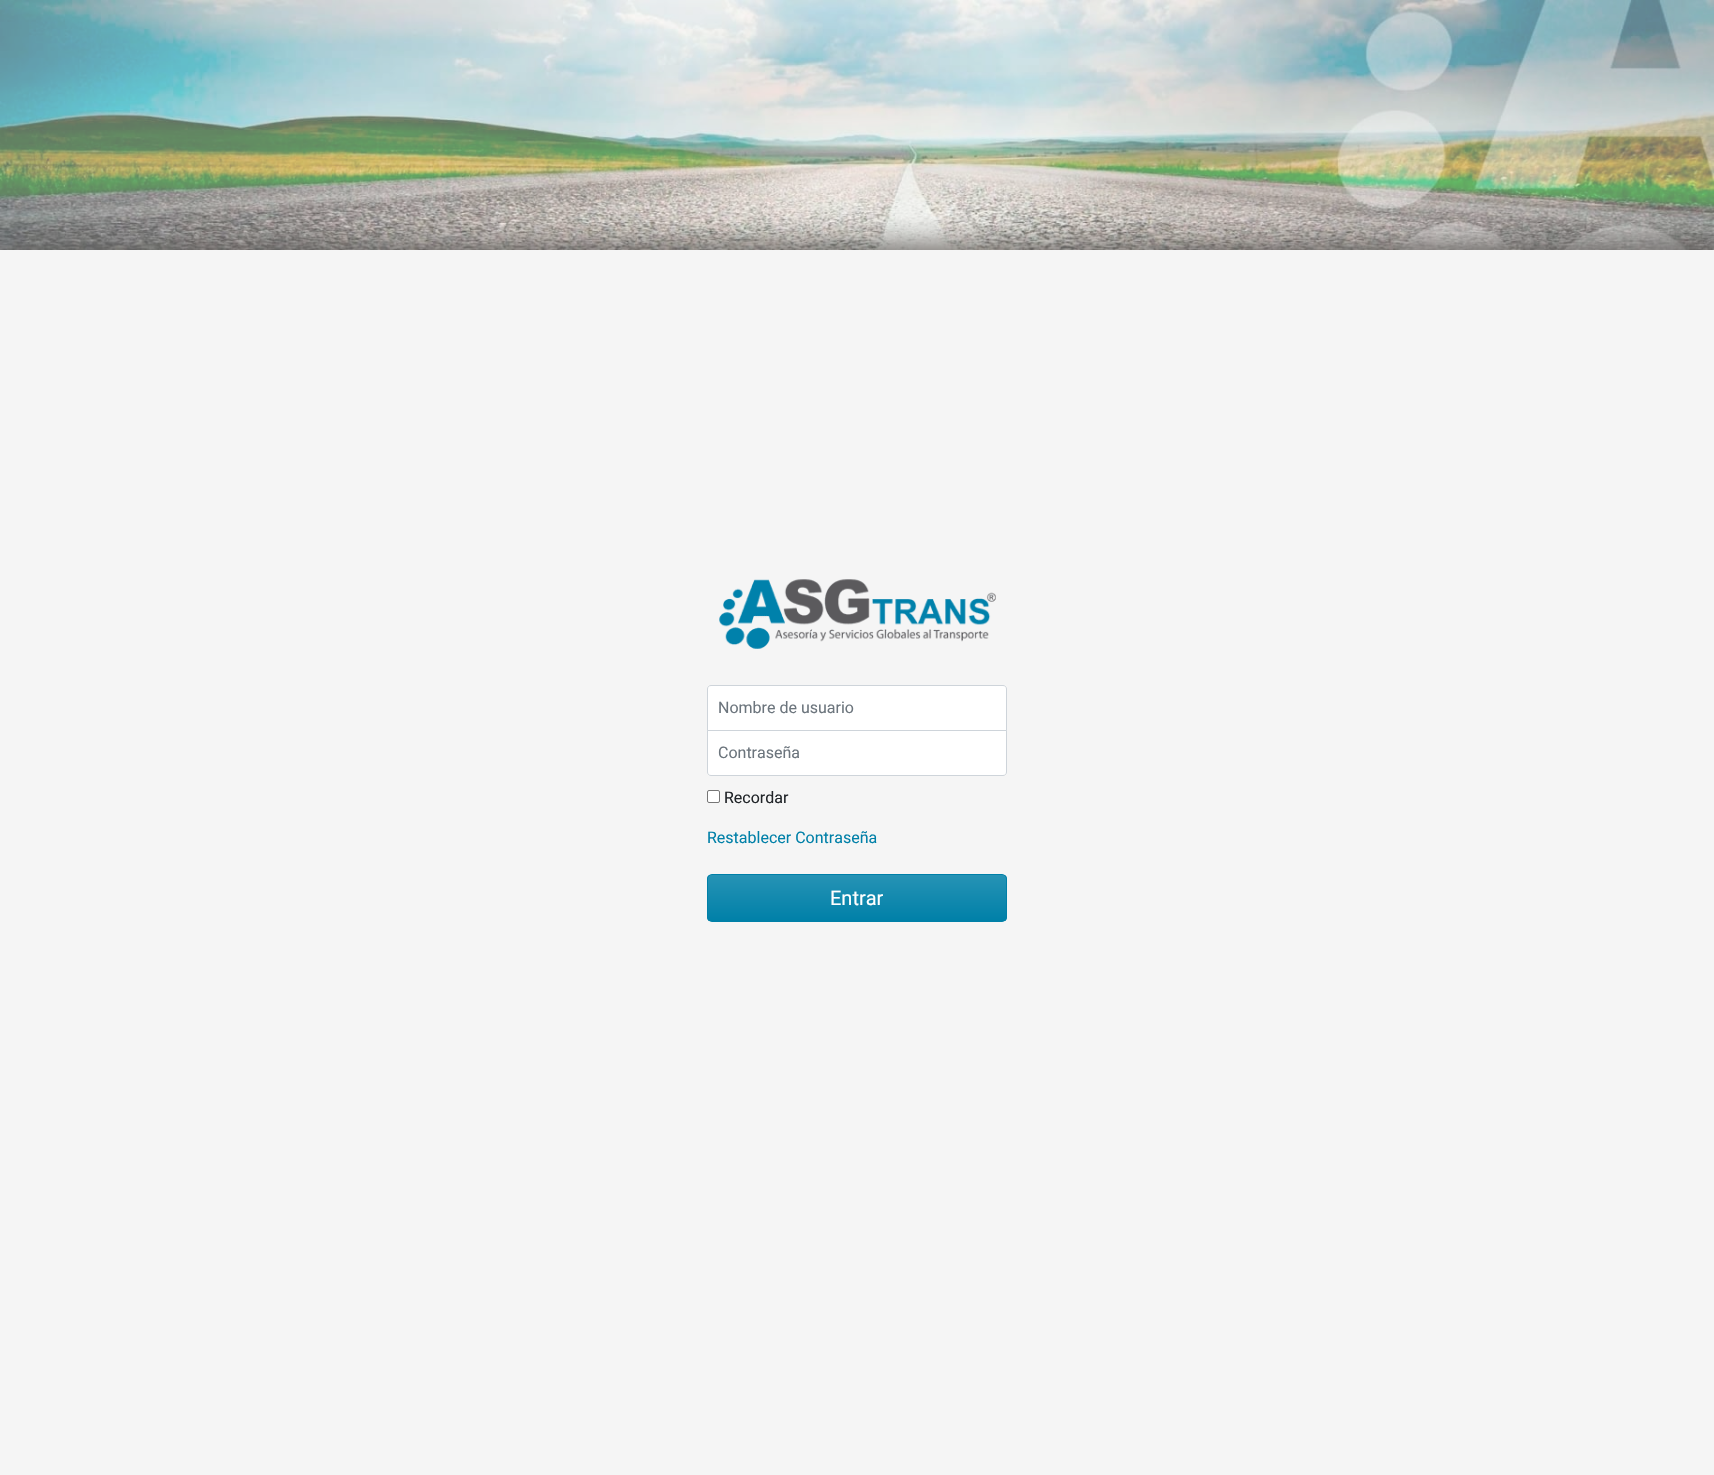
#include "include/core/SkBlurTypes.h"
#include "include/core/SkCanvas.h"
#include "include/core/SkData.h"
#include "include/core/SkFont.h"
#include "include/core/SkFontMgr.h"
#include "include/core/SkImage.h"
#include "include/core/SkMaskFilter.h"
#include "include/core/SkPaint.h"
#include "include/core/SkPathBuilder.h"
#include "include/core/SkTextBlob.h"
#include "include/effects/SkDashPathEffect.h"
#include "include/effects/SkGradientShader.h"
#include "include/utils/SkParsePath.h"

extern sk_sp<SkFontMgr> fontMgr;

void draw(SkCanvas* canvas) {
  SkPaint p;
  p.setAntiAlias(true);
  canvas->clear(SkColorSetRGB(245, 245, 245));
  canvas->drawImageRect(SkImages::DeferredFromEncodedData(SkData::MakeFromFileName("images/1.png")), SkRect::MakeLTRB(0, 0, 1714, 250), SkSamplingOptions());
  canvas->drawImageRect(SkImages::DeferredFromEncodedData(SkData::MakeFromFileName("images/2.png")), SkRect::MakeLTRB(719, 579, 996, 649), SkSamplingOptions());
  p.setColor(SK_ColorWHITE);
  canvas->drawPath(SkPathBuilder().moveTo(711, 685.5f).lineTo(1003, 685.5f).cubicTo(1005, 685.5f, 1006.5f, 687, 1006.5f, 689).lineTo(1006.5f, 730.5f).lineTo(707.5f, 730.5f).lineTo(707.5f, 689).cubicTo(707.5f, 687, 709, 685.5f, 711, 685.5f).close().detach(), p);
  p.setStyle(SkPaint::kStroke_Style);
  p.setStrokeWidth(1);
  p.setColor(SkColorSetRGB(206, 212, 218));
  canvas->drawPath(SkPathBuilder().moveTo(711, 685.5f).lineTo(1003, 685.5f).cubicTo(1005, 685.5f, 1006.5f, 687, 1006.5f, 689).lineTo(1006.5f, 730.5f).lineTo(707.5f, 730.5f).lineTo(707.5f, 689).cubicTo(707.5f, 687, 709, 685.5f, 711, 685.5f).close().detach(), p);
  p.setStyle(SkPaint::kFill_Style);
  p.setColor(SK_ColorWHITE);
  canvas->drawPath(SkPathBuilder().moveTo(707.5f, 730.5f).lineTo(1006.5f, 730.5f).lineTo(1006.5f, 772).cubicTo(1006.5f, 774, 1005, 775.5f, 1003, 775.5f).lineTo(711, 775.5f).cubicTo(709, 775.5f, 707.5f, 774, 707.5f, 772).close().detach(), p);
  p.setStyle(SkPaint::kStroke_Style);
  p.setColor(SkColorSetRGB(206, 212, 218));
  canvas->drawPath(SkPathBuilder().moveTo(707.5f, 730.5f).lineTo(1006.5f, 730.5f).lineTo(1006.5f, 772).cubicTo(1006.5f, 774, 1005, 775.5f, 1003, 775.5f).lineTo(711, 775.5f).cubicTo(709, 775.5f, 707.5f, 774, 707.5f, 772).close().detach(), p);
  p.setStyle(SkPaint::kFill_Style);
  p.setColor(SK_ColorWHITE);
  canvas->drawRoundRect(SkRect::MakeLTRB(707.5f, 790.5f, 719.5f, 802.5f), 1.5f, 1.5f, p);
  p.setStyle(SkPaint::kStroke_Style);
  p.setColor(SkColorSetRGB(118, 118, 118));
  canvas->drawRoundRect(SkRect::MakeLTRB(707.5f, 790.5f, 719.5f, 802.5f), 1.5f, 1.5f, p);
  canvas->save();
  canvas->clipPath(SkPathBuilder().moveTo(712, 874).lineTo(1002, 874).cubicTo(1005, 874, 1007, 876, 1007, 879).lineTo(1007, 917).cubicTo(1007, 920, 1005, 922, 1002, 922).lineTo(712, 922).cubicTo(709, 922, 707, 920, 707, 917).lineTo(707, 879).cubicTo(707, 876, 709, 874, 712, 874).close().detach(), true);
  p.setStyle(SkPaint::kFill_Style);
  {
    const SkColor colors[] = {SkColorSetRGB(38, 147, 181), SkColorSetRGB(0, 128, 168)};
    const float stops[] = {0, 1};
    const SkPoint ends[] = {{857, 875}, {857, 921}};
    p.setShader(SkGradientShader::MakeLinear(ends, colors, stops, 2, SkTileMode::kClamp));
    p.setAlpha(255);
  }
  canvas->drawRect(SkRect::MakeLTRB(707, 875, 1007, 921), p);
  canvas->restore();
  p.setStyle(SkPaint::kStroke_Style);
  p.setShader(nullptr);
  p.setColor(SkColorSetRGB(0, 128, 168));
  canvas->drawRoundRect(SkRect::MakeLTRB(707.5f, 874.5f, 1006.5f, 921.5f), 4.5f, 4.5f, p);
  SkFont font1(fontMgr->matchFamilyStyle("Roboto", SkFontStyle::Normal()), 16);
  font1.setSubpixel(true);
  p.setStyle(SkPaint::kFill_Style);
  p.setColor(SkColorSetRGB(108, 117, 125));
  canvas->drawString("Nombre de usuario", 718, 713, font1, p);
  canvas->drawString("Contraseña", 718, 758, font1, p);
  p.setColor(SkColorSetRGB(33, 37, 41));
  canvas->drawString("Recordar", 724, 803, font1, p);
  p.setColor(SkColorSetRGB(0, 128, 168));
  canvas->drawString("Restablecer Contraseña", 707, 843, font1, p);
  SkFont font2(fontMgr->matchFamilyStyle("Roboto", SkFontStyle::Normal()), 20);
  font2.setSubpixel(true);
  p.setColor(SK_ColorWHITE);
  canvas->drawString("Entrar", 830, 905, font2, p);
}
